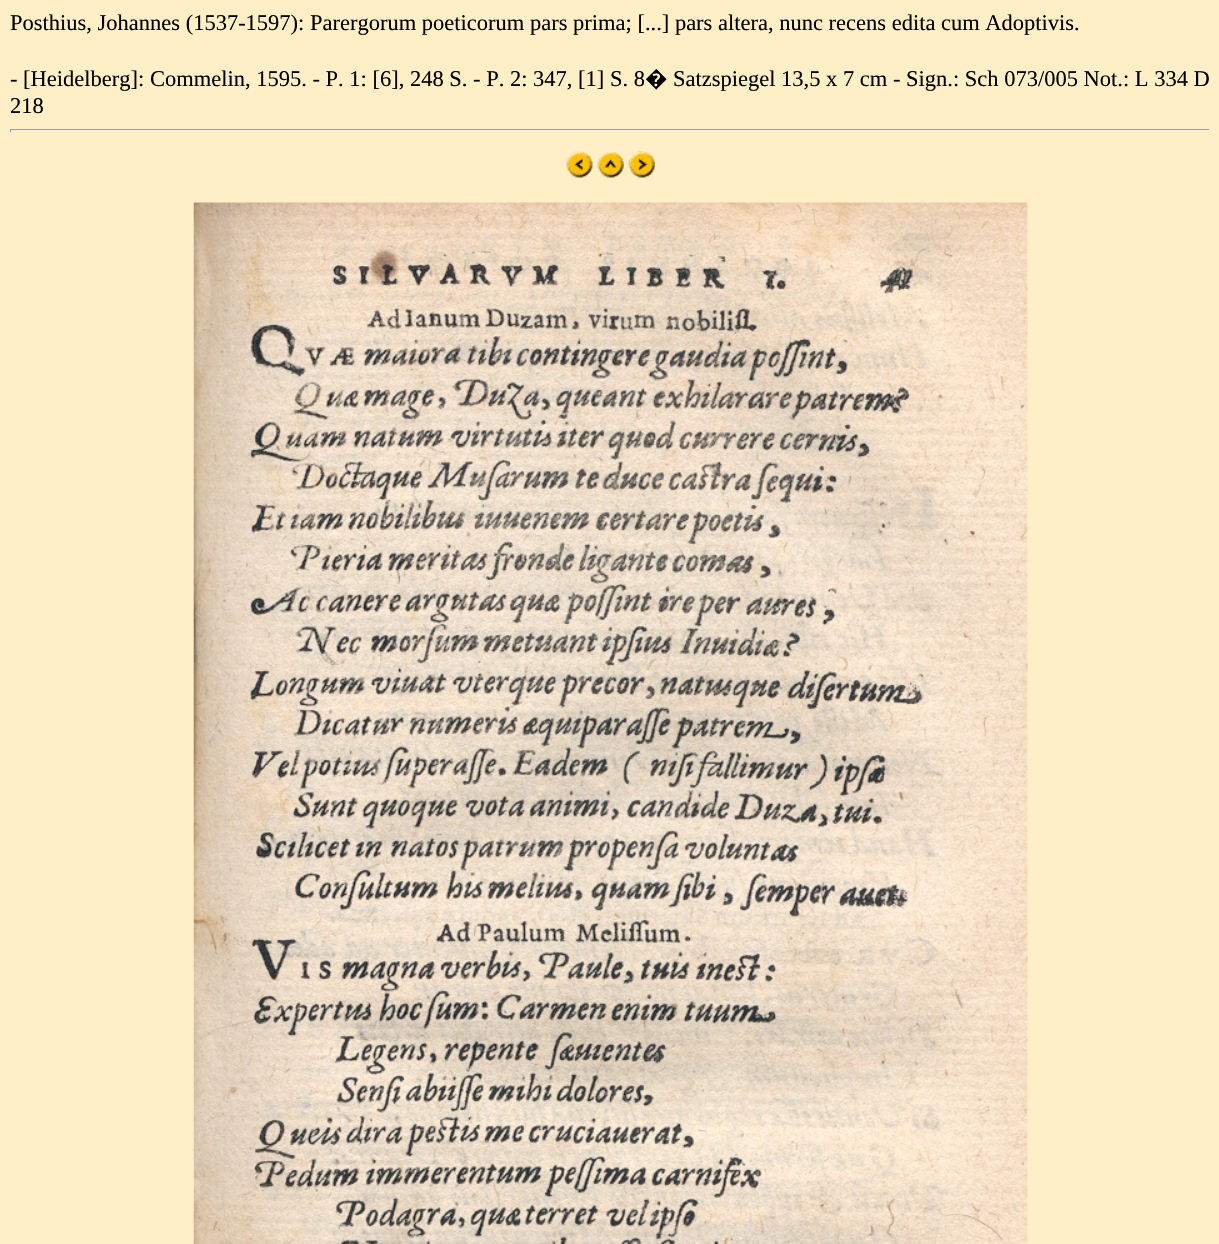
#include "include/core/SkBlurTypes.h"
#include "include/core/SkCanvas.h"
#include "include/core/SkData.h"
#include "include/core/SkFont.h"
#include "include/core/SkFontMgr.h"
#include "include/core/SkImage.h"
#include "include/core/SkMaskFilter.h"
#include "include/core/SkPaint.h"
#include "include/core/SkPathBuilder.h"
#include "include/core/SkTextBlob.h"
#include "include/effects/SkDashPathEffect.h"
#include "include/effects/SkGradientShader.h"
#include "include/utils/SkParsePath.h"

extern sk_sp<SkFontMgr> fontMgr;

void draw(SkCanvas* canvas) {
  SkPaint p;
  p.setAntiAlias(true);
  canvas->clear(SkColorSetRGB(255, 239, 198));
  p.setColor(SkColorSetRGB(159, 159, 159));
  canvas->drawRect(SkRect::MakeLTRB(10, 129, 1210, 130), p);
  p.setColor(SkColorSetRGB(238, 238, 238));
  canvas->drawRect(SkRect::MakeLTRB(1209, 129, 1210, 132), p);
  canvas->drawRect(SkRect::MakeLTRB(10, 130, 1210, 131), p);
  p.setColor(SkColorSetRGB(159, 159, 159));
  canvas->drawRect(SkRect::MakeLTRB(10, 129, 11, 132), p);
  canvas->drawImageRect(SkImages::DeferredFromEncodedData(SkData::MakeFromFileName("images/1.png")), SkRect::MakeLTRB(566, 151, 593, 178), SkSamplingOptions());
  canvas->drawImageRect(SkImages::DeferredFromEncodedData(SkData::MakeFromFileName("images/2.png")), SkRect::MakeLTRB(597, 152, 624, 178), SkSamplingOptions());
  canvas->drawImageRect(SkImages::DeferredFromEncodedData(SkData::MakeFromFileName("images/3.png")), SkRect::MakeLTRB(628, 151, 655, 178), SkSamplingOptions());
  canvas->drawImageRect(SkImages::DeferredFromEncodedData(SkData::MakeFromFileName("images/4.png")), SkRect::MakeLTRB(193, 202, 1028, 1244), SkSamplingOptions());
  SkFont font1(fontMgr->matchFamilyStyle("Liberation Serif", SkFontStyle::Normal()), 22.5f);
  font1.setSubpixel(true);
  p.setColor(SK_ColorBLACK);
  canvas->drawString("Posthius, Johannes (1537-1597): Parergorum poeticorum pars prima; [...] pars altera, nunc recens edita cum Adoptivis.", 10, 30, font1, p);
  canvas->drawString("- [Heidelberg]: Commelin, 1595. - P. 1: [6], 248 S. - P. 2: 347, [1] S. 8", 10, 86, font1, p);
  SkFont font2(fontMgr->matchFamilyStyle("Noto Sans", SkFontStyle::Normal()), 22.5f);
  font2.setSubpixel(true);
  canvas->drawString("�", 645, 86, font2, p);
  canvas->drawString("Satzspiegel 13,5 x 7 cm - Sign.: Sch 073/005 Not.: L 334 D", 673, 86, font1, p);
  canvas->drawString("218", 10, 113, font1, p);
}
